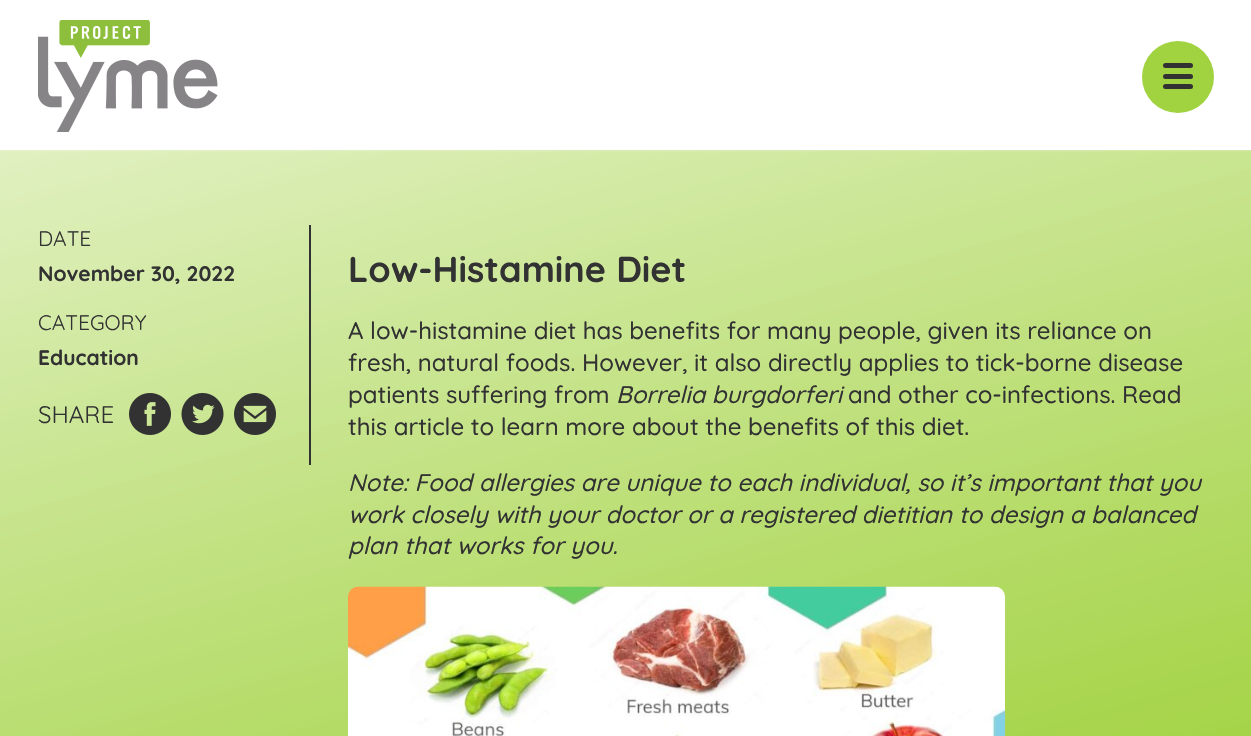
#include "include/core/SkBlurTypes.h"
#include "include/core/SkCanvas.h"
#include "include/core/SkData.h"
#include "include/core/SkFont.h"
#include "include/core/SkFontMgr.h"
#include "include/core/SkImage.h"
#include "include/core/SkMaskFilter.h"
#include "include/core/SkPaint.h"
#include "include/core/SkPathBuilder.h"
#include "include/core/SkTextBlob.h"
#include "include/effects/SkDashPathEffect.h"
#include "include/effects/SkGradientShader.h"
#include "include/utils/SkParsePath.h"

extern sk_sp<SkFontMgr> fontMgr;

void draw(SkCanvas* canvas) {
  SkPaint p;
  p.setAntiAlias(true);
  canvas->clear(SK_ColorWHITE);
  canvas->drawImageRect(SkImages::DeferredFromEncodedData(SkData::MakeFromFileName("images/1.png")), SkRect::MakeLTRB(38, 20, 218, 132), SkSamplingOptions());
  p.setColor(SkColorSetRGB(161, 210, 63));
  canvas->drawCircle(1178, 77, 36, p);
  p.setColor(SkColorSetRGB(50, 50, 50));
  canvas->drawRoundRect(SkRect::MakeLTRB(1163, 63, 1193, 68), 2.5f, 2.5f, p);
  canvas->drawRoundRect(SkRect::MakeLTRB(1163, 74, 1193, 79), 2.5f, 2.5f, p);
  canvas->drawRoundRect(SkRect::MakeLTRB(1163, 84, 1193, 89), 2.5f, 2.5f, p);
  canvas->drawImageRect(SkImages::DeferredFromEncodedData(SkData::MakeFromFileName("images/2.png")), SkRect::MakeLTRB(0, 150, 1251, 736), SkSamplingOptions());
  canvas->drawRect(SkRect::MakeLTRB(309, 225, 311, 465), p);
  canvas->drawImageRect(SkImages::DeferredFromEncodedData(SkData::MakeFromFileName("images/3.png")), SkRect::MakeLTRB(129, 393, 171, 435), SkSamplingOptions());
  canvas->drawImageRect(SkImages::DeferredFromEncodedData(SkData::MakeFromFileName("images/4.png")), SkRect::MakeLTRB(181, 393, 224, 435), SkSamplingOptions());
  canvas->drawImageRect(SkImages::DeferredFromEncodedData(SkData::MakeFromFileName("images/5.png")), SkRect::MakeLTRB(234, 393, 276, 435), SkSamplingOptions());
  canvas->drawImageRect(SkImages::DeferredFromEncodedData(SkData::MakeFromFileName("images/6.png")), SkRect::MakeLTRB(348, 586, 1005, 736), SkSamplingOptions());
  SkFont font1(fontMgr->matchFamilyStyle("Quicksand", SkFontStyle::Normal()), 21);
  font1.setSubpixel(true);
  canvas->drawString("DATE", 38, 246, font1, p);
  SkFont font2(fontMgr->matchFamilyStyle("Quicksand", SkFontStyle::Bold()), 21);
  font2.setSubpixel(true);
  canvas->drawString("November 30, 2022", 38, 281, font2, p);
  canvas->drawString("CATEGORY", 38, 330, font1, p);
  canvas->drawString("Education", 38, 365, font2, p);
  SkFont font3(fontMgr->matchFamilyStyle("Quicksand", SkFontStyle::Normal()), 24);
  font3.setSubpixel(true);
  canvas->drawString("SHARE", 38, 423, font3, p);
  SkFont font4(fontMgr->matchFamilyStyle("Quicksand", SkFontStyle::Bold()), 36);
  font4.setSubpixel(true);
  canvas->drawString("Low-Histamine Diet", 348, 282, font4, p);
  SkFont font5(fontMgr->matchFamilyStyle("Quicksand", SkFontStyle(500, SkFontStyle::kNormal_Width, SkFontStyle::kUpright_Slant)), 24);
  font5.setSubpixel(true);
  canvas->drawString("A low-histamine diet has benefits for many people, given its reliance on", 348, 339, font5, p);
  canvas->drawString("fresh, natural foods. However, it also directly applies to tick-borne disease", 348, 371, font5, p);
  canvas->drawString("patients suffering from", 348, 403, font5, p);
  SkFont font6(fontMgr->matchFamilyStyle("Quicksand", SkFontStyle(500, SkFontStyle::kNormal_Width, SkFontStyle::kItalic_Slant)), 24);
  font6.setSubpixel(true);
  canvas->drawString("Borrelia burgdorferi", 616, 403, font6, p);
  canvas->drawString("and other co-infections. Read", 848, 403, font5, p);
  canvas->drawString("this article to learn more about the benefits of this diet.", 348, 435, font5, p);
  canvas->drawString("Note: Food allergies are unique to each individual, so it’s important that you", 348, 491, font6, p);
  canvas->drawString("work closely with your doctor or a registered dietitian to design a balanced", 348, 523, font6, p);
  canvas->drawString("plan that works for you.", 348, 554, font6, p);
}
